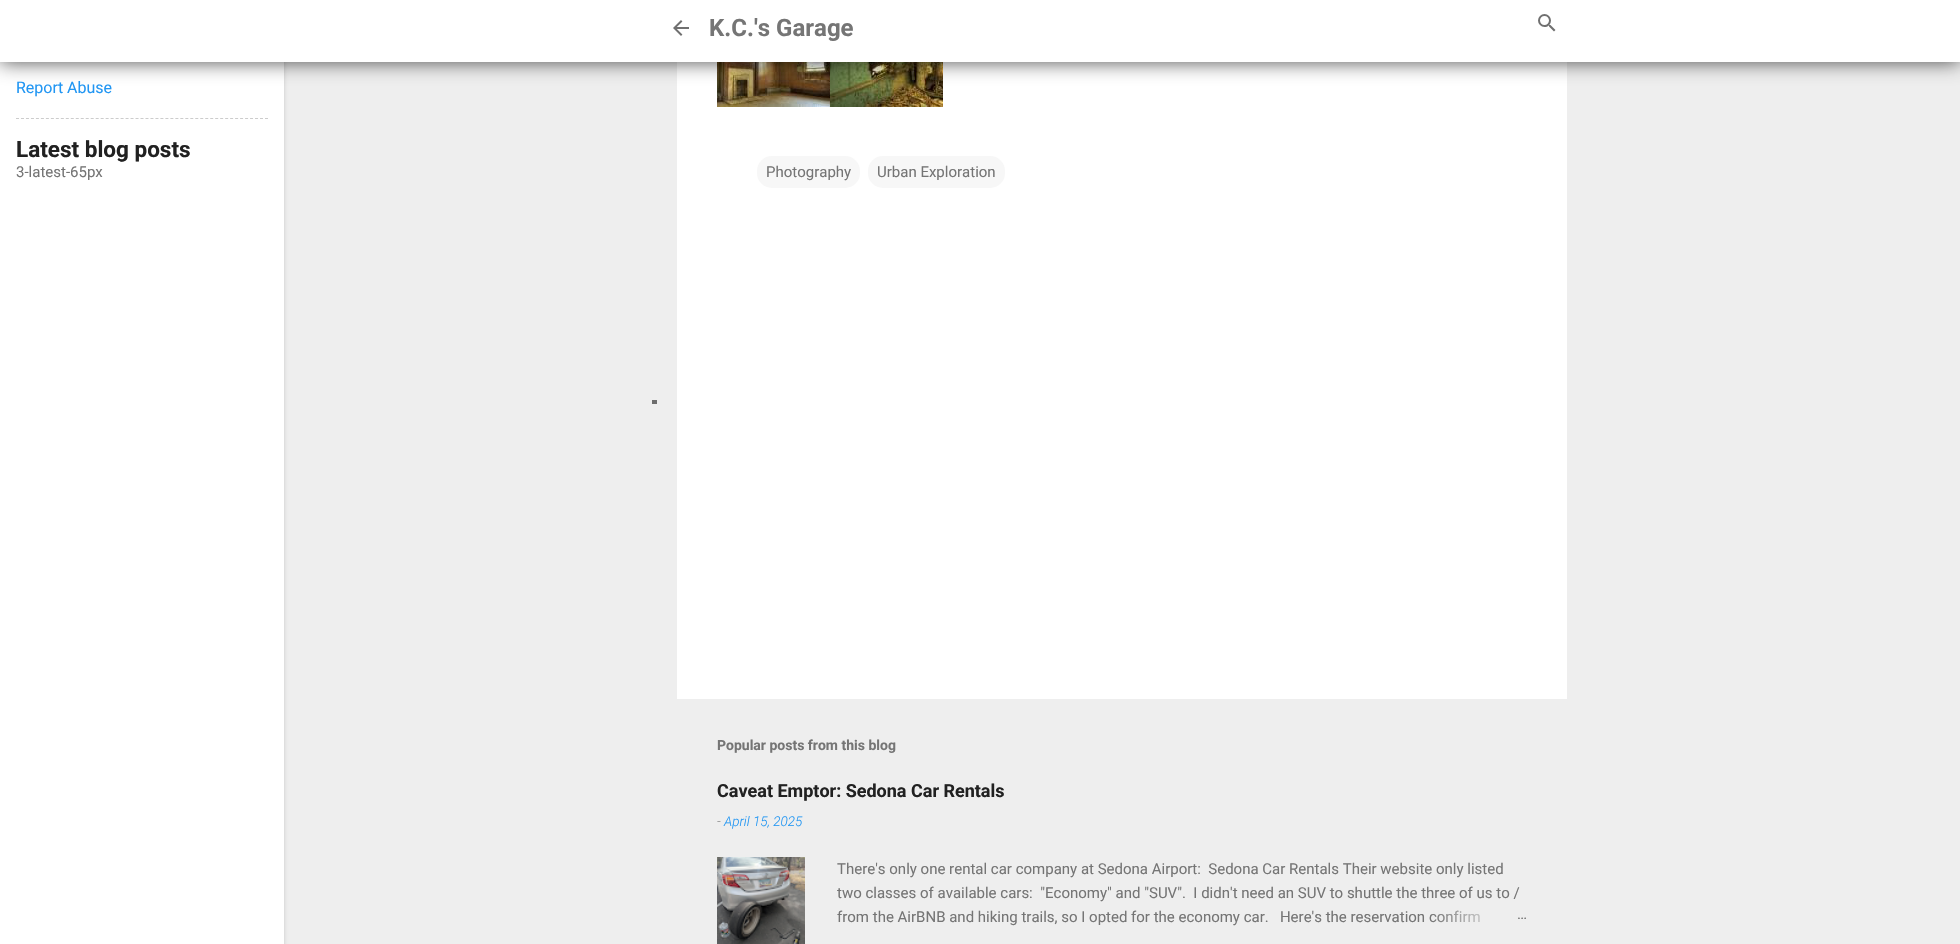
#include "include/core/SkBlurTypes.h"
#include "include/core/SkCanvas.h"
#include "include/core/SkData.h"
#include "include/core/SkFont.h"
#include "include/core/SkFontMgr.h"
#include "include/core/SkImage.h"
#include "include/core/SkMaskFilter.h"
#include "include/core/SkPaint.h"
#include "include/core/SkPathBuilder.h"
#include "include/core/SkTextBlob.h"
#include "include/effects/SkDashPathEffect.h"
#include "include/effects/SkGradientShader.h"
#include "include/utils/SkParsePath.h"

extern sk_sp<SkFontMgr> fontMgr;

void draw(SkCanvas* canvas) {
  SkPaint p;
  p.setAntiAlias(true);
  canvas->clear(SkColorSetRGB(238, 238, 238));
  p.setColor(SkColorSetARGB(26, 0, 0, 0));
  p.setMaskFilter(SkMaskFilter::MakeBlur(kNormal_SkBlurStyle, 1.5f));
  canvas->drawRect(SkRect::MakeLTRB(1, -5, 285, 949), p);
  p.setMaskFilter(nullptr);
  p.setColor(SK_ColorWHITE);
  canvas->drawRect(SkRect::MakeLTRB(0, 62, 284, 944), p);
  canvas->drawRect(SkRect::MakeLTRB(677, 62, 1567, 699), p);
  canvas->drawImageRect(SkImages::DeferredFromEncodedData(SkData::MakeFromFileName("images/3.png")), SkRect::MakeLTRB(717, 62, 830, 107), SkSamplingOptions());
  canvas->drawImageRect(SkImages::DeferredFromEncodedData(SkData::MakeFromFileName("images/4.png")), SkRect::MakeLTRB(830, 62, 943, 107), SkSamplingOptions());
  p.setColor(SkColorSetARGB(179, 0, 0, 0));
  p.setMaskFilter(SkMaskFilter::MakeBlur(kNormal_SkBlurStyle, 10));
  canvas->drawRect(SkRect::MakeLTRB(0, 0, 1960, 62), p);
  p.setMaskFilter(nullptr);
  p.setColor(SK_ColorWHITE);
  canvas->drawRect(SkRect::MakeLTRB(0, 0, 1960, 62), p);
  canvas->drawImageRect(SkImages::DeferredFromEncodedData(SkData::MakeFromFileName("images/1.png")), SkRect::MakeLTRB(673, 20, 689, 36), SkSamplingOptions());
  canvas->drawImageRect(SkImages::DeferredFromEncodedData(SkData::MakeFromFileName("images/2.png")), SkRect::MakeLTRB(1538, 14, 1556, 32), SkSamplingOptions());
  p.setStyle(SkPaint::kStroke_Style);
  p.setStrokeWidth(1);
  p.setColor(SkColorSetRGB(204, 204, 204));
  p.setPathEffect(SkDashPathEffect::Make({{3, 1.98f}}, 0));
  canvas->drawPath(SkPathBuilder().moveTo(16, 118.5f).lineTo(268, 118.5f).detach(), p);
  p.setPathEffect(nullptr);
  p.setStyle(SkPaint::kFill_Style);
  p.setColor(SkColorSetRGB(109, 109, 109));
  canvas->drawRect(SkRect::MakeLTRB(652, 400, 657, 404), p);
  p.setColor(SkColorSetRGB(247, 247, 247));
  canvas->drawRoundRect(SkRect::MakeLTRB(757, 156, 860, 188), 15, 15, p);
  canvas->drawRoundRect(SkRect::MakeLTRB(868, 156, 1005, 188), 15, 15, p);
  canvas->drawImageRect(SkImages::DeferredFromEncodedData(SkData::MakeFromFileName("images/5.png")), SkRect::MakeLTRB(717, 857, 805, 944), SkSamplingOptions());
  SkFont font1(fontMgr->matchFamilyStyle("Roboto", SkFontStyle::Bold()), 24);
  font1.setSubpixel(true);
  p.setColor(SkColorSetRGB(117, 117, 117));
  canvas->drawString("K.C.'s Garage", 709, 36, font1, p);
  SkFont font2(fontMgr->matchFamilyStyle("Roboto", SkFontStyle::Normal()), 16);
  font2.setSubpixel(true);
  p.setColor(SkColorSetRGB(33, 150, 243));
  canvas->drawString("Report Abuse", 16, 93, font2, p);
  SkFont font3(fontMgr->matchFamilyStyle("Roboto", SkFontStyle::Bold()), 22.5f);
  font3.setSubpixel(true);
  p.setColor(SkColorSetRGB(33, 33, 33));
  canvas->drawString("Latest blog posts", 16, 157, font3, p);
  SkFont font4(fontMgr->matchFamilyStyle("Roboto", SkFontStyle::Normal()), 15);
  font4.setSubpixel(true);
  p.setColor(SkColorSetRGB(117, 117, 117));
  canvas->drawString("3-latest-65px", 16, 177, font4, p);
  canvas->drawString("Photography", 766, 177, font4, p);
  canvas->drawString("Urban Exploration", 877, 177, font4, p);
  SkFont font5(fontMgr->matchFamilyStyle("Roboto", SkFontStyle::Bold()), 14);
  font5.setSubpixel(true);
  canvas->drawString("Popular posts from this blog", 717, 750, font5, p);
  SkFont font6(fontMgr->matchFamilyStyle("Roboto", SkFontStyle::Bold()), 18);
  font6.setSubpixel(true);
  p.setColor(SkColorSetRGB(33, 33, 33));
  canvas->drawString("Caveat Emptor: Sedona Car Rentals", 717, 797, font6, p);
  SkFont font7(fontMgr->matchFamilyStyle("Roboto", SkFontStyle(300, SkFontStyle::kNormal_Width, SkFontStyle::kItalic_Slant)), 13.5f);
  font7.setSubpixel(true);
  p.setColor(SkColorSetRGB(109, 109, 109));
  canvas->drawString("-", 717, 826, font7, p);
  p.setColor(SkColorSetRGB(33, 150, 243));
  canvas->drawString("April 15, 2025", 724, 826, font7, p);
  p.setColor(SkColorSetRGB(117, 117, 117));
  canvas->drawString("There's only one rental car company at Sedona Airport:  Sedona Car Rentals Their website only listed", 837, 874, font4, p);
  canvas->drawString("two classes of available cars:  \"Economy\" and \"SUV\".  I didn't need an SUV to shuttle the three of us to /", 837, 898, font4, p);
  canvas->drawString("from the AirBNB and hiking trails, so I opted for the economy car.   Here's the reservation confirm", 837, 922, font4, p);
  {
    const SkColor colors[] = {SkColorSetRGB(238, 238, 238), SkColorSetRGB(238, 238, 238), SkColorSetARGB(0, 238, 238, 238)};
    const float stops[] = {0, 0.2f, 1};
    const SkPoint ends[] = {{1527, 917}, {1431, 917}};
    p.setShader(SkGradientShader::MakeLinear(ends, colors, stops, 3, SkTileMode::kClamp));
    p.setAlpha(255);
  }
  canvas->drawRect(SkRect::MakeLTRB(1433, 910, 1480, 922), p);
  p.setShader(nullptr);
  p.setColor(SkColorSetRGB(117, 117, 117));
  canvas->drawString("…", 1517, 919, font4, p);
}
